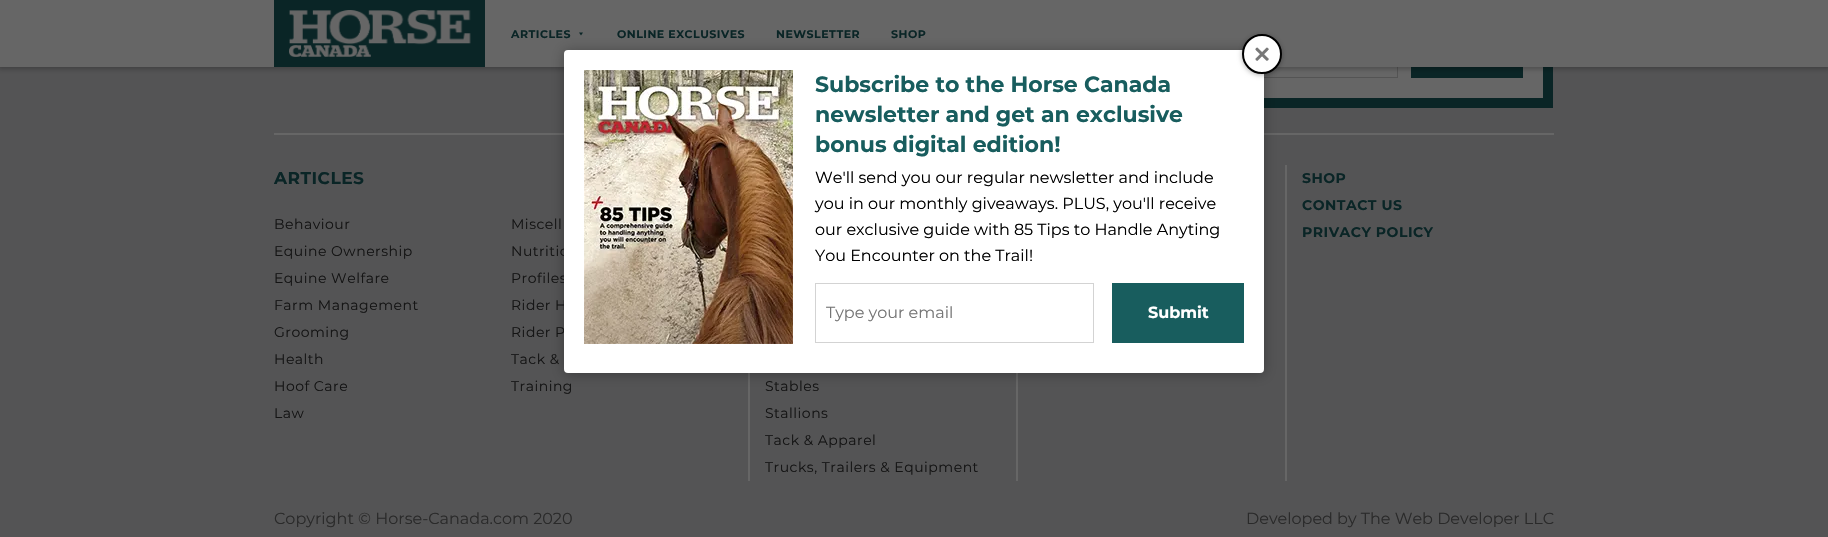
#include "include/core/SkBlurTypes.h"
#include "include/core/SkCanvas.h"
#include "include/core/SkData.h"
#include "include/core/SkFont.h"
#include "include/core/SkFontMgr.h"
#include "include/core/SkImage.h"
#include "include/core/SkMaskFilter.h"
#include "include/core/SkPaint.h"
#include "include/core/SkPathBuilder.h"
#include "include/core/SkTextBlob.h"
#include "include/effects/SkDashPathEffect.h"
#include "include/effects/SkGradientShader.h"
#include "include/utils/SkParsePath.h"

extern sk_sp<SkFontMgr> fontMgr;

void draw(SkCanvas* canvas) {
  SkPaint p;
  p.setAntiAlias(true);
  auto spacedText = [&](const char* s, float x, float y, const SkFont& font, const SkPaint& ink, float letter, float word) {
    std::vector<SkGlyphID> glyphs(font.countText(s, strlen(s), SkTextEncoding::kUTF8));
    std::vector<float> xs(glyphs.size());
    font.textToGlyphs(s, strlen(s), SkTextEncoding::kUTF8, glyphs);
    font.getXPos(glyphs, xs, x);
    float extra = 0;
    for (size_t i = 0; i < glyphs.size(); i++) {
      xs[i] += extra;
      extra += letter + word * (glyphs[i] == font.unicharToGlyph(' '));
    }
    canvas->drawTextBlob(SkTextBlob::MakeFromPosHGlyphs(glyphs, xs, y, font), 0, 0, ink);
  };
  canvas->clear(SkColorSetRGB(84, 84, 85));
  p.setColor(SkColorSetRGB(102, 102, 102));
  canvas->drawRect(SkRect::MakeLTRB(1264, 67, 1543, 98), p);
  p.setStyle(SkPaint::kStroke_Style);
  p.setStrokeWidth(10);
  p.setColor(SkColorSetRGB(10, 37, 38));
  canvas->drawRect(SkRect::MakeLTRB(939, -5, 1548, 103), p);
  p.setStrokeWidth(1);
  p.setColor(SkColorSetRGB(84, 84, 84));
  canvas->drawRect(SkRect::MakeLTRB(964.5f, 20.5f, 1397.5f, 77.5f), p);
  p.setStyle(SkPaint::kFill_Style);
  p.setColor(SkColorSetRGB(10, 37, 38));
  canvas->drawRect(SkRect::MakeLTRB(1411, 67, 1523, 78), p);
  p.setColor(SkColorSetARGB(64, 0, 0, 0));
  p.setMaskFilter(SkMaskFilter::MakeBlur(kNormal_SkBlurStyle, 2.5f));
  canvas->drawRect(SkRect::MakeLTRB(-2, -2, 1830, 69), p);
  p.setMaskFilter(nullptr);
  p.setColor(SkColorSetRGB(102, 102, 102));
  canvas->drawRect(SkRect::MakeLTRB(0, 0, 1828, 67), p);
  p.setColor(SkColorSetRGB(10, 37, 38));
  canvas->drawRect(SkRect::MakeLTRB(274, 0, 485, 67), p);
  canvas->drawImageRect(SkImages::DeferredFromEncodedData(SkData::MakeFromFileName("images/1.png")), SkRect::MakeLTRB(289, 10, 471, 57), SkSamplingOptions());
  canvas->drawPath(SkPathBuilder().moveTo(583, 32.5f).lineTo(581, 35.5f).lineTo(579, 32.5f).close().detach(), p);
  p.setColor(SkColorSetRGB(102, 102, 102));
  canvas->drawRect(SkRect::MakeLTRB(274, 133, 1554, 135), p);
  canvas->drawRect(SkRect::MakeLTRB(748, 373, 750, 481), p);
  canvas->drawRect(SkRect::MakeLTRB(1016, 373, 1018, 481), p);
  p.setColor(SkColorSetARGB(77, 0, 0, 0));
  p.setMaskFilter(SkMaskFilter::MakeBlur(kNormal_SkBlurStyle, 6.5f));
  canvas->drawRoundRect(SkRect::MakeLTRB(564, 51, 1264, 374), 4, 4, p);
  p.setMaskFilter(nullptr);
  p.setColor(SkColorSetRGB(102, 102, 102));
  canvas->drawRect(SkRect::MakeLTRB(1285, 165, 1287, 481), p);
  SkFont font1(fontMgr->matchFamilyStyle("Montserrat", SkFontStyle::Bold()), 11);
  font1.setSubpixel(true);
  p.setColor(SkColorSetRGB(10, 37, 38));
  spacedText("ARTICLES", 511, 38, font1, p, 0.5f, 0);
  spacedText("ONLINE EXCLUSIVES", 617, 38, font1, p, 0.5f, 0);
  spacedText("NEWSLETTER", 776, 38, font1, p, 0.5f, 0);
  spacedText("SHOP", 891, 38, font1, p, 0.5f, 0);
  SkFont font2(fontMgr->matchFamilyStyle("Montserrat", SkFontStyle::Bold()), 17);
  font2.setSubpixel(true);
  spacedText("ARTICLES", 274, 184, font2, p, 0.5f, 0);
  SkFont font3(fontMgr->matchFamilyStyle("Montserrat", SkFontStyle::Normal()), 14);
  font3.setSubpixel(true);
  p.setColor(SkColorSetRGB(20, 20, 20));
  spacedText("Behaviour", 274, 229, font3, p, 0.5f, 0);
  spacedText("Miscell", 511, 229, font3, p, 0.5f, 0);
  spacedText("Equine Ownership", 274, 256, font3, p, 0.5f, 0);
  spacedText("Nutritio", 511, 256, font3, p, 0.5f, 0);
  spacedText("Equine Welfare", 274, 283, font3, p, 0.5f, 0);
  spacedText("Profiles", 511, 283, font3, p, 0.5f, 0);
  spacedText("Farm Management", 274, 310, font3, p, 0.5f, 0);
  spacedText("Rider H", 511, 310, font3, p, 0.5f, 0);
  spacedText("Grooming", 274, 337, font3, p, 0.5f, 0);
  spacedText("Rider P", 511, 337, font3, p, 0.5f, 0);
  p.setColor(SK_ColorWHITE);
  canvas->drawRoundRect(SkRect::MakeLTRB(564, 50, 1264, 373), 4, 4, p);
  p.setStyle(SkPaint::kStroke_Style);
  p.setColor(SkColorSetRGB(211, 211, 211));
  canvas->drawRect(SkRect::MakeLTRB(815.5f, 283.5f, 1093.5f, 342.5f), p);
  SkFont font4(fontMgr->matchFamilyStyle("Montserrat", SkFontStyle::Normal()), 16);
  font4.setSubpixel(true);
  p.setStyle(SkPaint::kFill_Style);
  p.setColor(SkColorSetRGB(117, 117, 117));
  canvas->drawString("Type your email", 826, 318, font4, p);
  p.setColor(SK_ColorBLACK);
  canvas->drawString("You Encounter on the Trail!", 815, 261, font4, p);
  canvas->drawString("our exclusive guide with 85 Tips to Handle Anyting", 815, 235, font4, p);
  canvas->drawString("you in our monthly giveaways. PLUS, you'll receive", 815, 209, font4, p);
  canvas->drawString("We'll send you our regular newsletter and include", 815, 183, font4, p);
  canvas->drawImageRect(SkImages::DeferredFromEncodedData(SkData::MakeFromFileName("images/3.png")), SkRect::MakeLTRB(584, 70, 793, 344), SkSamplingOptions());
  SkFont font5(fontMgr->matchFamilyStyle("Montserrat", SkFontStyle::Bold()), 22);
  font5.setSubpixel(true);
  p.setColor(SkColorSetRGB(24, 93, 94));
  canvas->drawString("bonus digital edition!", 815, 152, font5, p);
  canvas->drawString("newsletter and get an exclusive", 815, 122, font5, p);
  canvas->drawString("Subscribe to the Horse Canada", 815, 92, font5, p);
  p.setColor(SkColorSetARGB(77, 0, 0, 0));
  p.setMaskFilter(SkMaskFilter::MakeBlur(kNormal_SkBlurStyle, 2.5f));
  canvas->drawRoundRect(SkRect::MakeLTRB(1242, 35, 1282, 75), 20, 20, p);
  p.setMaskFilter(nullptr);
  p.setColor(SK_ColorWHITE);
  canvas->drawCircle(1262, 54, 19, p);
  p.setStyle(SkPaint::kStroke_Style);
  p.setStrokeWidth(2);
  p.setColor(SK_ColorBLACK);
  canvas->drawCircle(1262, 54, 19, p);
  canvas->drawImageRect(SkImages::DeferredFromEncodedData(SkData::MakeFromFileName("images/2.png")), SkRect::MakeLTRB(1255, 47, 1269, 61), SkSamplingOptions());
  p.setStyle(SkPaint::kFill_Style);
  p.setColor(SkColorSetRGB(24, 93, 94));
  canvas->drawRect(SkRect::MakeLTRB(1112, 283, 1244, 343), p);
  SkFont font6(fontMgr->matchFamilyStyle("Montserrat", SkFontStyle::Bold()), 16);
  font6.setSubpixel(true);
  p.setColor(SK_ColorWHITE);
  canvas->drawString("Submit", 1148, 318, font6, p);
  p.setColor(SkColorSetRGB(20, 20, 20));
  spacedText("Health", 274, 364, font3, p, 0.5f, 0);
  spacedText("Tack &", 511, 364, font3, p, 0.5f, 0);
  spacedText("Hoof Care", 274, 391, font3, p, 0.5f, 0);
  spacedText("Training", 511, 391, font3, p, 0.5f, 0);
  spacedText("Law", 274, 418, font3, p, 0.5f, 0);
  SkFont font7(fontMgr->matchFamilyStyle("Montserrat", SkFontStyle::Bold()), 14);
  font7.setSubpixel(true);
  p.setColor(SkColorSetRGB(10, 37, 38));
  spacedText("SHOP", 1302, 183, font7, p, 0.5f, 0);
  spacedText("CONTACT US", 1302, 210, font7, p, 0.5f, 0);
  spacedText("PRIVACY POLICY", 1302, 237, font7, p, 0.5f, 0);
  p.setColor(SkColorSetRGB(20, 20, 20));
  spacedText("Stables", 765, 391, font3, p, 0.5f, 0);
  spacedText("Stallions", 765, 418, font3, p, 0.5f, 0);
  spacedText("Tack & Apparel", 765, 445, font3, p, 0.5f, 0);
  spacedText("Trucks, Trailers & Equipment", 765, 472, font3, p, 0.5f, 0);
  p.setColor(SkColorSetRGB(42, 42, 42));
  canvas->drawString("Copyright © Horse-Canada.com 2020", 274, 524, font4, p);
  canvas->drawString("Developed by The Web Developer LLC", 1246, 524, font4, p);
}
